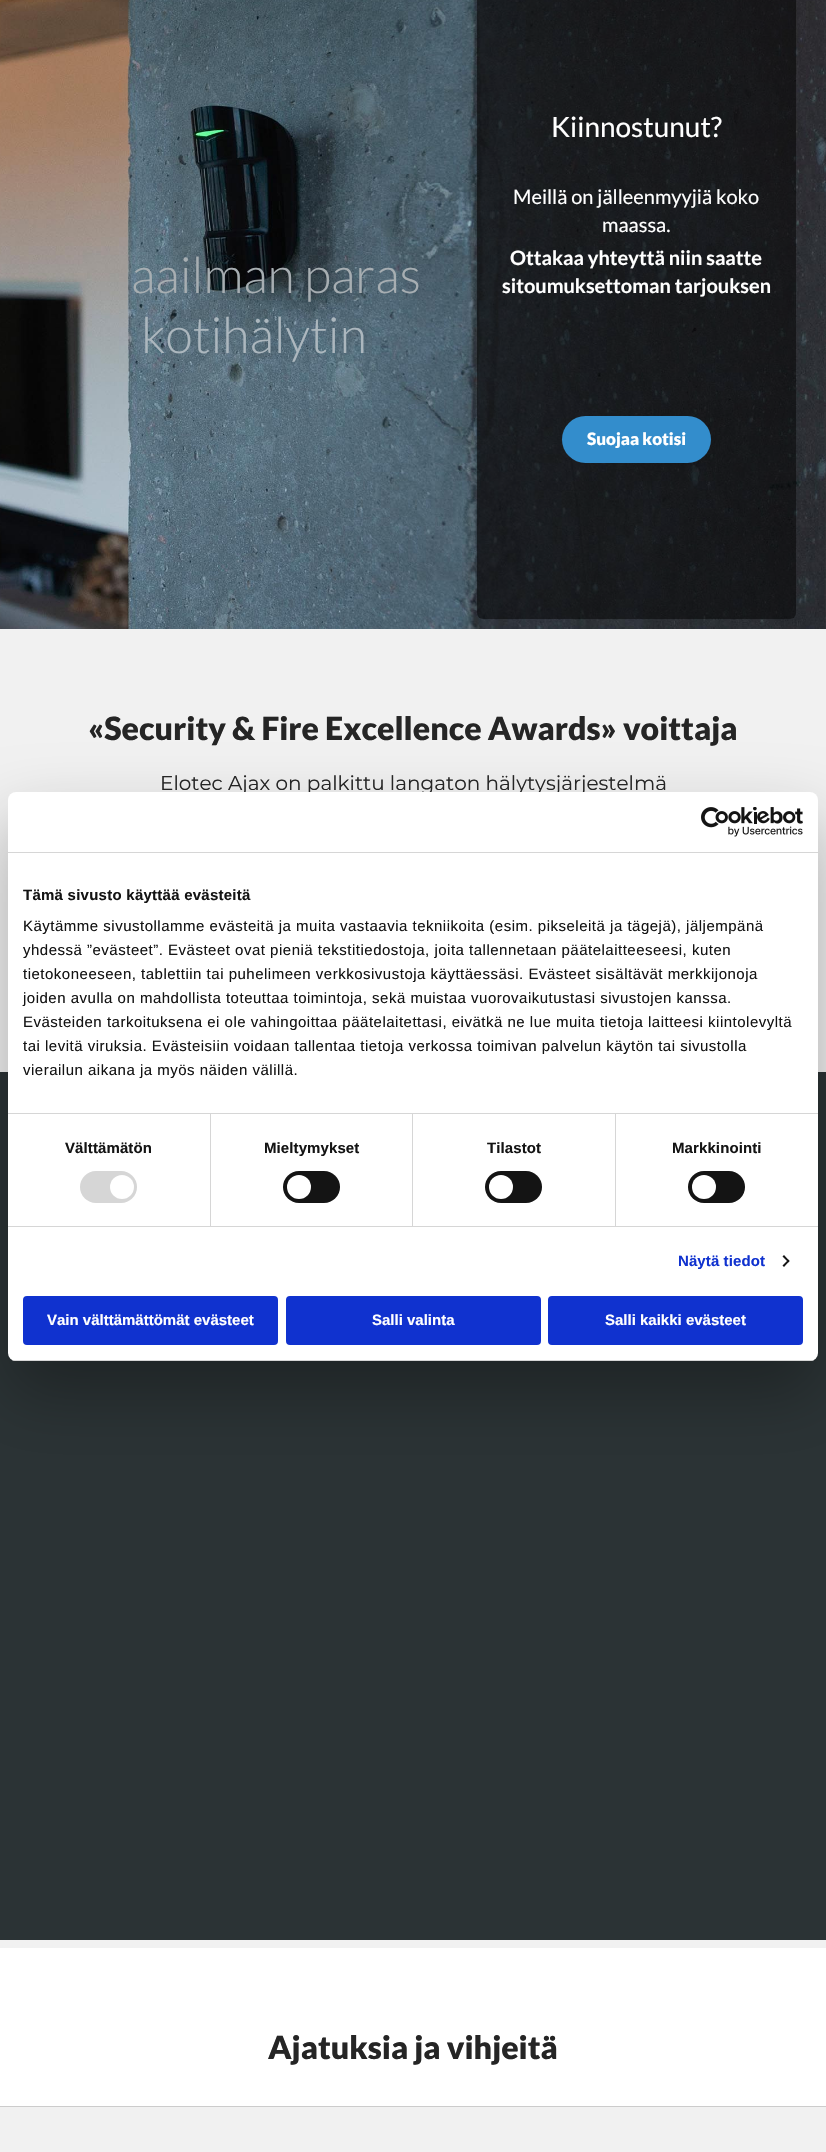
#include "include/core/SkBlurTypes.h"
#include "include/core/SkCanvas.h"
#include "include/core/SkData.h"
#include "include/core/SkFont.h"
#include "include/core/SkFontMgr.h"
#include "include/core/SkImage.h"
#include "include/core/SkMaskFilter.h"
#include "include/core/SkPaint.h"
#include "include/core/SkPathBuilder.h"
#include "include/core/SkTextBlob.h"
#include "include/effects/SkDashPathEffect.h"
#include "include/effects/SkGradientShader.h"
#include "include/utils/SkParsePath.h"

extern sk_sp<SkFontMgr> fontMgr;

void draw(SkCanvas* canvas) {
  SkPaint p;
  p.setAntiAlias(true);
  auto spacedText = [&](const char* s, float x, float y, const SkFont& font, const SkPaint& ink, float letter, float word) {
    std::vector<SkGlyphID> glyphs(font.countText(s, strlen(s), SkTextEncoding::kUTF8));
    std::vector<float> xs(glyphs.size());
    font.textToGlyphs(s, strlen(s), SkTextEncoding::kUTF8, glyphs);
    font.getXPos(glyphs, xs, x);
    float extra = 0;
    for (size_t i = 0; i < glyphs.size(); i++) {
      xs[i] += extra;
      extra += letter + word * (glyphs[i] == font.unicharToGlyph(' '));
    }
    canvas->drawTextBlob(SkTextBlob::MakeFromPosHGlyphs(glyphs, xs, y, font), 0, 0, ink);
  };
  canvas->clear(SK_ColorWHITE);
  canvas->drawImageRect(SkImages::DeferredFromEncodedData(SkData::MakeFromFileName("images/1.png")), SkRect::MakeLTRB(0, 0, 826, 629), SkSamplingOptions());
  p.setColor(SkColorSetARGB(128, 0, 0, 0));
  canvas->drawRoundRect(SkRect::MakeLTRB(477, -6, 796, 619), 6, 6, p);
  p.setColor(SkColorSetRGB(51, 141, 204));
  canvas->drawRoundRect(SkRect::MakeLTRB(562, 416, 711, 463), 23.5f, 23.5f, p);
  p.setColor(SkColorSetRGB(241, 241, 241));
  canvas->drawRect(SkRect::MakeLTRB(0, 629, 826, 1072), p);
  canvas->drawRect(SkRect::MakeLTRB(0, 1940, 826, 1948), p);
  p.setColor(SkColorSetRGB(43, 51, 53));
  canvas->drawRect(SkRect::MakeLTRB(0, 1072, 275, 1940), p);
  canvas->drawRect(SkRect::MakeLTRB(275, 1361, 551, 1940), p);
  canvas->drawRect(SkRect::MakeLTRB(551, 1072, 826, 1940), p);
  p.setColor(SkColorSetRGB(241, 241, 241));
  canvas->drawRect(SkRect::MakeLTRB(0, 2107, 826, 2152), p);
  p.setColor(SkColorSetRGB(204, 204, 204));
  canvas->drawRect(SkRect::MakeLTRB(0, 2106, 826, 2107), p);
  p.setColor(SkColorSetARGB(77, 0, 0, 0));
  p.setMaskFilter(SkMaskFilter::MakeBlur(kNormal_SkBlurStyle, 34));
  canvas->drawRoundRect(SkRect::MakeLTRB(8, 824, 818, 1393), 8, 8, p);
  p.setMaskFilter(nullptr);
  SkFont font1(fontMgr->matchFamilyStyle("Lato", SkFontStyle(300, SkFontStyle::kNormal_Width, SkFontStyle::kUpright_Slant)), 50);
  font1.setSubpixel(true);
  p.setColor(SkColorSetRGB(167, 174, 178));
  canvas->drawString("aailman paras", 131, 293, font1, p);
  p.setColor(SkColorSetRGB(172, 183, 190));
  canvas->drawString("kotihälytin", 141, 353, font1, p);
  SkFont font2(fontMgr->matchFamilyStyle("Lato", SkFontStyle::Normal()), 28);
  font2.setSubpixel(true);
  p.setColor(SK_ColorWHITE);
  canvas->drawString("Kiinnostunut?", 551, 137, font2, p);
  SkFont font3(fontMgr->matchFamilyStyle("Lato", SkFontStyle::Normal()), 20);
  font3.setSubpixel(true);
  canvas->drawString("Meillä on jälleenmyyjiä koko", 513, 204, font3, p);
  canvas->drawString("maassa.", 602, 232, font3, p);
  SkFont font4(fontMgr->matchFamilyStyle("Lato", SkFontStyle::Bold()), 20);
  font4.setSubpixel(true);
  canvas->drawString("Ottakaa yhteyttä niin saatte", 510, 265, font4, p);
  canvas->drawString("sitoumuksettoman tarjouksen", 502, 293, font4, p);
  SkFont font5(fontMgr->matchFamilyStyle("Lato", SkFontStyle(900, SkFontStyle::kNormal_Width, SkFontStyle::kUpright_Slant)), 17);
  font5.setSubpixel(true);
  canvas->drawString("Suojaa kotisi", 587, 445, font5, p);
  SkFont font6(fontMgr->matchFamilyStyle("Lato", SkFontStyle(900, SkFontStyle::kNormal_Width, SkFontStyle::kUpright_Slant)), 32);
  font6.setSubpixel(true);
  p.setColor(SkColorSetRGB(37, 37, 37));
  canvas->drawString("«Security & Fire Excellence Awards» voittaja", 88, 740, font6, p);
  SkFont font7(fontMgr->matchFamilyStyle("Montserrat", SkFontStyle(100, SkFontStyle::kNormal_Width, SkFontStyle::kUpright_Slant)), 20);
  font7.setSubpixel(true);
  canvas->drawString("Elotec Ajax on palkittu langaton hälytysjärjestelmä", 160, 790, font7, p);
  canvas->drawString("Ajatuksia ja vihjeitä", 268, 2059, font6, p);
  p.setColor(SK_ColorWHITE);
  canvas->drawRoundRect(SkRect::MakeLTRB(8, 792, 818, 1361), 8, 8, p);
  p.setColor(SkColorSetRGB(214, 214, 214));
  canvas->drawRect(SkRect::MakeLTRB(8, 852, 818, 853), p);
  canvas->drawImageRect(SkImages::DeferredFromEncodedData(SkData::MakeFromFileName("images/2.png")), SkRect::MakeLTRB(701, 807, 803, 837), SkSamplingOptions());
  canvas->drawRect(SkRect::MakeLTRB(8, 1113, 818, 1114), p);
  SkFont font8(fontMgr->matchFamilyStyle("Liberation Sans", SkFontStyle::Bold()), 15);
  font8.setSubpixel(true);
  p.setColor(SkColorSetRGB(20, 20, 20));
  spacedText("Tämä sivusto käyttää evästeitä", 23, 900, font8, p, 0.25f, 0);
  SkFont font9(fontMgr->matchFamilyStyle("Liberation Sans", SkFontStyle::Normal()), 15);
  font9.setSubpixel(true);
  spacedText("Käytämme sivustollamme evästeitä ja muita vastaavia tekniikoita (esim. pikseleitä ja tägejä), jäljempänä", 23, 931, font9, p, 0.5f, 0);
  spacedText("yhdessä ”evästeet”. Evästeet ovat pieniä tekstitiedostoja, joita tallennetaan päätelaitteeseesi, kuten", 23, 955, font9, p, 0.5f, 0);
  spacedText("tietokoneeseen, tablettiin tai puhelimeen verkkosivustoja käyttäessäsi. Evästeet sisältävät merkkijonoja", 23, 979, font9, p, 0.5f, 0);
  spacedText("joiden avulla on mahdollista toteuttaa toimintoja, sekä muistaa vuorovaikutustasi sivustojen kanssa.", 23, 1003, font9, p, 0.5f, 0);
  spacedText("Evästeiden tarkoituksena ei ole vahingoittaa päätelaitettasi, eivätkä ne lue muita tietoja laitteesi kiintolevyltä", 23, 1027, font9, p, 0.5f, 0);
  spacedText("tai levitä viruksia. Evästeisiin voidaan tallentaa tietoja verkossa toimivan palvelun käytön tai sivustolla", 23, 1051, font9, p, 0.5f, 0);
  spacedText("vierailun aikana ja myös näiden välillä.", 23, 1075, font9, p, 0.5f, 0);
  p.setColor(SkColorSetRGB(214, 214, 214));
  canvas->drawRect(SkRect::MakeLTRB(8, 1226, 818, 1227), p);
  canvas->drawRect(SkRect::MakeLTRB(210, 1114, 211, 1226), p);
  p.setColor(SkColorSetRGB(20, 20, 20));
  spacedText("Välttämätön", 65, 1153, font8, p, 0.1f, 0);
  p.setColor(SkColorSetRGB(214, 214, 214));
  canvas->drawRoundRect(SkRect::MakeLTRB(80, 1171, 137, 1203), 16, 16, p);
  p.setColor(SK_ColorWHITE);
  canvas->drawCircle(122, 1187, 12, p);
  p.setColor(SkColorSetRGB(214, 214, 214));
  canvas->drawRect(SkRect::MakeLTRB(412, 1114, 413, 1226), p);
  p.setColor(SkColorSetRGB(20, 20, 20));
  spacedText("Mieltymykset", 264, 1153, font8, p, 0.1f, 0);
  canvas->drawRoundRect(SkRect::MakeLTRB(283, 1171, 340, 1203), 16, 16, p);
  p.setColor(SK_ColorWHITE);
  canvas->drawCircle(299, 1187, 12, p);
  p.setColor(SkColorSetRGB(214, 214, 214));
  canvas->drawRect(SkRect::MakeLTRB(615, 1114, 616, 1226), p);
  p.setColor(SkColorSetRGB(20, 20, 20));
  spacedText("Tilastot", 487, 1153, font8, p, 0.1f, 0);
  canvas->drawRoundRect(SkRect::MakeLTRB(485, 1171, 542, 1203), 16, 16, p);
  p.setColor(SK_ColorWHITE);
  canvas->drawCircle(501, 1187, 12, p);
  p.setColor(SkColorSetRGB(20, 20, 20));
  spacedText("Markkinointi", 672, 1153, font8, p, 0.1f, 0);
  canvas->drawRoundRect(SkRect::MakeLTRB(688, 1171, 745, 1203), 16, 16, p);
  p.setColor(SK_ColorWHITE);
  canvas->drawCircle(704, 1187, 12, p);
  p.setColor(SkColorSetRGB(16, 50, 207));
  spacedText("Näytä tiedot", 678, 1266, font8, p, 0.1f, 0);
  p.setColor(SkColorSetRGB(20, 20, 20));
  canvas->drawPath(SkPathBuilder().moveTo(784, 1255).lineTo(789.5f, 1261).lineTo(788.5f, 1262.5f).lineTo(782.5f, 1256.5f).close().detach(), p);
  canvas->drawPath(SkPathBuilder().moveTo(788.5f, 1259.5f).lineTo(789.5f, 1261).lineTo(784, 1267).lineTo(782.5f, 1265.5f).close().detach(), p);
  canvas->save();
  canvas->clipPath(SkPathBuilder().moveTo(16, 792).lineTo(810, 792).cubicTo(814.5f, 792, 818, 795.5f, 818, 800).lineTo(818, 1353).cubicTo(818, 1357.5f, 814.5f, 1361, 810, 1361).lineTo(16, 1361).cubicTo(11.5f, 1361, 8, 1357.5f, 8, 1353).lineTo(8, 800).cubicTo(8, 795.5f, 11.5f, 792, 16, 792).close().detach(), true);
  p.setColor(SkColorSetRGB(214, 214, 214));
  canvas->drawRect(SkRect::MakeLTRB(8, 1360, 818, 1361), p);
  canvas->restore();
  p.setColor(SkColorSetRGB(16, 50, 207));
  canvas->drawRoundRect(SkRect::MakeLTRB(24, 1297, 277, 1344), 3, 3, p);
  p.setStyle(SkPaint::kStroke_Style);
  p.setStrokeWidth(2);
  canvas->drawRoundRect(SkRect::MakeLTRB(24, 1297, 277, 1344), 3, 3, p);
  p.setStyle(SkPaint::kFill_Style);
  p.setColor(SK_ColorWHITE);
  canvas->drawString("Vain välttämättömät evästeet", 47, 1325, font8, p);
  p.setColor(SkColorSetRGB(16, 50, 207));
  canvas->drawRoundRect(SkRect::MakeLTRB(287, 1297, 540, 1344), 3, 3, p);
  p.setStyle(SkPaint::kStroke_Style);
  canvas->drawRoundRect(SkRect::MakeLTRB(287, 1297, 540, 1344), 3, 3, p);
  p.setStyle(SkPaint::kFill_Style);
  p.setColor(SK_ColorWHITE);
  canvas->drawString("Salli valinta", 372, 1325, font8, p);
  p.setColor(SkColorSetRGB(16, 50, 207));
  canvas->drawRoundRect(SkRect::MakeLTRB(549, 1297, 802, 1344), 3, 3, p);
  p.setStyle(SkPaint::kStroke_Style);
  canvas->drawRoundRect(SkRect::MakeLTRB(549, 1297, 802, 1344), 3, 3, p);
  p.setStyle(SkPaint::kFill_Style);
  p.setColor(SK_ColorWHITE);
  canvas->drawString("Salli kaikki evästeet", 605, 1325, font8, p);
}
